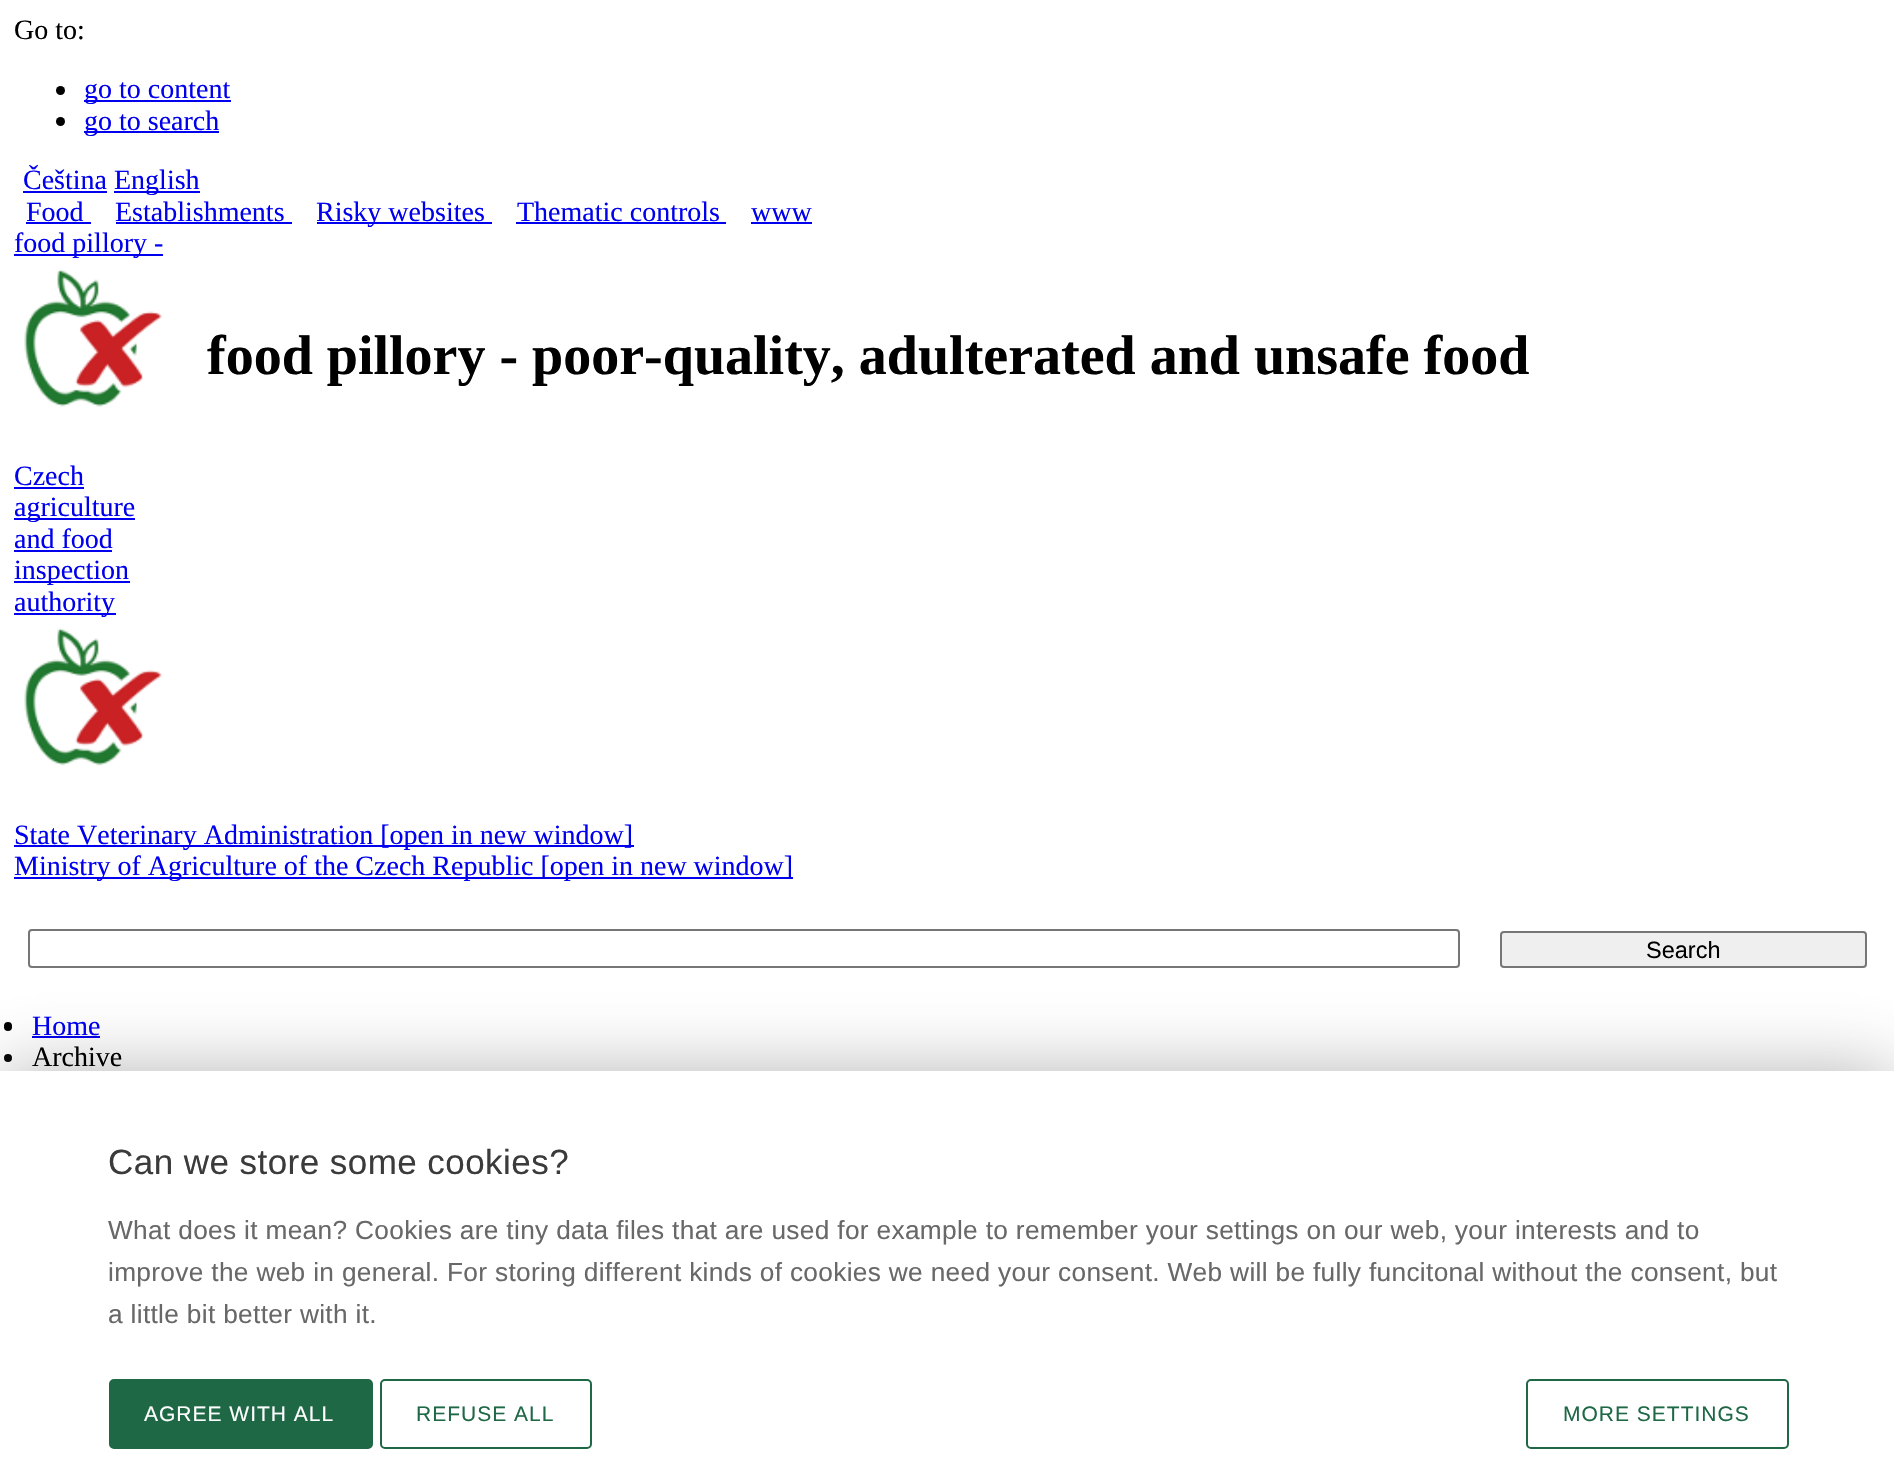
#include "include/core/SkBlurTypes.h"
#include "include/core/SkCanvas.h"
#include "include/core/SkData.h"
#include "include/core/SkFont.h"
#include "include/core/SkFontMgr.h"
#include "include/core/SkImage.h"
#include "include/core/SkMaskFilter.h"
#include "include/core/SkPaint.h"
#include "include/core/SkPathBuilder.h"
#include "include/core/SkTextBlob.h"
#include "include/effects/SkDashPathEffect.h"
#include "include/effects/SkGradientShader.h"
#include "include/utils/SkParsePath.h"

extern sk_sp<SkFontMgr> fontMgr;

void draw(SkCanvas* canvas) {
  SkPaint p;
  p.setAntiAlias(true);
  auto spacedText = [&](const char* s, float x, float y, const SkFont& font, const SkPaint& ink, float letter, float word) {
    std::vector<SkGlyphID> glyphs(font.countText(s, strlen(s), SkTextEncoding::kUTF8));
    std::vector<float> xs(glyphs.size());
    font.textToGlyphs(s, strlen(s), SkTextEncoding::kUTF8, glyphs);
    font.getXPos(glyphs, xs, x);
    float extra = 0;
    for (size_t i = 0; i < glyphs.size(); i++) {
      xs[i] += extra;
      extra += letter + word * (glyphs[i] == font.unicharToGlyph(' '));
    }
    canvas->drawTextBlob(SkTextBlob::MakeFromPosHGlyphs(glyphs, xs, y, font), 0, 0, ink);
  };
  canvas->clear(SK_ColorWHITE);
  p.setColor(SK_ColorBLACK);
  canvas->drawCircle(60.5f, 90.5f, 4.5f, p);
  p.setColor(SkColorSetRGB(0, 0, 238));
  canvas->drawRect(SkRect::MakeLTRB(84, 100, 231, 102), p);
  p.setColor(SK_ColorBLACK);
  canvas->drawCircle(60.5f, 121.5f, 4.5f, p);
  p.setColor(SkColorSetRGB(0, 0, 238));
  canvas->drawRect(SkRect::MakeLTRB(84, 131, 219, 133), p);
  canvas->drawRect(SkRect::MakeLTRB(23, 191, 107, 193), p);
  canvas->drawRect(SkRect::MakeLTRB(114, 191, 200, 193), p);
  canvas->drawRect(SkRect::MakeLTRB(26, 222, 91, 224), p);
  canvas->drawRect(SkRect::MakeLTRB(116, 222, 292, 224), p);
  canvas->drawRect(SkRect::MakeLTRB(317, 222, 492, 224), p);
  canvas->drawRect(SkRect::MakeLTRB(516, 222, 726, 224), p);
  canvas->drawRect(SkRect::MakeLTRB(751, 222, 812, 224), p);
  canvas->drawRect(SkRect::MakeLTRB(14, 254, 163, 256), p);
  canvas->drawImageRect(SkImages::DeferredFromEncodedData(SkData::MakeFromFileName("images/1.png")), SkRect::MakeLTRB(24, 269, 162, 407), SkSamplingOptions());
  canvas->drawRect(SkRect::MakeLTRB(14, 487, 84, 489), p);
  canvas->drawRect(SkRect::MakeLTRB(14, 518, 135, 520), p);
  canvas->drawRect(SkRect::MakeLTRB(14, 550, 112, 552), p);
  canvas->drawRect(SkRect::MakeLTRB(14, 581, 130, 583), p);
  canvas->drawRect(SkRect::MakeLTRB(14, 613, 116, 615), p);
  canvas->drawImageRect(SkImages::DeferredFromEncodedData(SkData::MakeFromFileName("images/2.png")), SkRect::MakeLTRB(24, 628, 162, 766), SkSamplingOptions());
  canvas->drawRect(SkRect::MakeLTRB(14, 845, 634, 847), p);
  canvas->drawRect(SkRect::MakeLTRB(14, 877, 793, 879), p);
  p.setStyle(SkPaint::kStroke_Style);
  p.setStrokeWidth(2);
  p.setColor(SkColorSetRGB(118, 118, 118));
  canvas->drawRoundRect(SkRect::MakeLTRB(29, 930, 1459, 967), 3, 3, p);
  p.setStyle(SkPaint::kFill_Style);
  p.setColor(SkColorSetRGB(239, 239, 239));
  canvas->drawRoundRect(SkRect::MakeLTRB(1501, 932, 1866, 967), 3, 3, p);
  p.setStyle(SkPaint::kStroke_Style);
  p.setColor(SkColorSetRGB(118, 118, 118));
  canvas->drawRoundRect(SkRect::MakeLTRB(1501, 932, 1866, 967), 3, 3, p);
  p.setStyle(SkPaint::kFill_Style);
  p.setColor(SK_ColorBLACK);
  canvas->drawRoundRect(SkRect::MakeLTRB(4, 1022, 12, 1031), 4, 4, p);
  p.setColor(SkColorSetRGB(0, 0, 238));
  canvas->drawRect(SkRect::MakeLTRB(32, 1036, 100, 1038), p);
  p.setColor(SK_ColorBLACK);
  canvas->drawCircle(8, 1058, 4, p);
  p.setColor(SkColorSetARGB(102, 59, 59, 59));
  p.setMaskFilter(SkMaskFilter::MakeBlur(kNormal_SkBlurStyle, 35));
  canvas->drawRect(SkRect::MakeLTRB(0, 1073, 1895, 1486), p);
  p.setMaskFilter(nullptr);
  p.setColor(SK_ColorWHITE);
  canvas->drawRect(SkRect::MakeLTRB(0, 1071, 1894, 1483), p);
  p.setColor(SkColorSetRGB(30, 104, 70));
  canvas->drawRoundRect(SkRect::MakeLTRB(110, 1380, 372, 1448), 4, 4, p);
  p.setStyle(SkPaint::kStroke_Style);
  canvas->drawRoundRect(SkRect::MakeLTRB(110, 1380, 372, 1448), 4, 4, p);
  canvas->drawRoundRect(SkRect::MakeLTRB(381, 1380, 591, 1448), 4, 4, p);
  canvas->drawRoundRect(SkRect::MakeLTRB(1527, 1380, 1788, 1448), 4, 4, p);
  SkFont font1(fontMgr->matchFamilyStyle("Liberation Serif", SkFontStyle::Normal()), 28);
  font1.setSubpixel(true);
  p.setStyle(SkPaint::kFill_Style);
  p.setColor(SK_ColorBLACK);
  canvas->drawString("Go to:", 14, 39, font1, p);
  p.setColor(SkColorSetRGB(0, 0, 238));
  canvas->drawString("go to content", 84, 98, font1, p);
  canvas->drawString("go to search", 84, 130, font1, p);
  canvas->drawString("Čeština", 23, 189, font1, p);
  canvas->drawString("English", 114, 189, font1, p);
  canvas->drawString("Food", 26, 221, font1, p);
  canvas->drawString("Establishments", 115, 221, font1, p);
  canvas->drawString("Risky websites", 316, 221, font1, p);
  canvas->drawString("Thematic controls", 517, 221, font1, p);
  canvas->drawString("www", 751, 221, font1, p);
  canvas->drawString("food pillory -", 14, 252, font1, p);
  SkFont font2(fontMgr->matchFamilyStyle("Liberation Serif", SkFontStyle::Bold()), 56);
  font2.setSubpixel(true);
  p.setColor(SK_ColorBLACK);
  canvas->drawString("food pillory - poor-quality, adulterated and unsafe food", 207, 374, font2, p);
  p.setColor(SkColorSetRGB(0, 0, 238));
  canvas->drawString("Czech", 14, 485, font1, p);
  canvas->drawString("agriculture", 14, 516, font1, p);
  canvas->drawString("and food", 14, 548, font1, p);
  canvas->drawString("inspection", 14, 579, font1, p);
  canvas->drawString("authority", 14, 611, font1, p);
  canvas->drawString("State Veterinary Administration [open in new window]", 14, 844, font1, p);
  canvas->drawString("Ministry of Agriculture of the Czech Republic [open in new window]", 14, 875, font1, p);
  SkFont font3(fontMgr->matchFamilyStyle("Liberation Sans", SkFontStyle::Normal()), 23.5f);
  font3.setSubpixel(true);
  p.setColor(SK_ColorBLACK);
  canvas->drawString("Search", 1646, 958, font3, p);
  p.setColor(SkColorSetRGB(0, 0, 238));
  canvas->drawString("Home", 32, 1035, font1, p);
  p.setColor(SK_ColorBLACK);
  canvas->drawString("Archive", 32, 1066, font1, p);
  SkFont font4(fontMgr->matchFamilyStyle("Liberation Sans", SkFontStyle::Normal()), 35);
  font4.setSubpixel(true);
  p.setColor(SkColorSetRGB(59, 59, 59));
  spacedText("Can we store some cookies?", 108, 1174, font4, p, 0.45f, 0);
  SkFont font5(fontMgr->matchFamilyStyle("Liberation Sans", SkFontStyle::Normal()), 26.25f);
  font5.setSubpixel(true);
  p.setColor(SkColorSetRGB(104, 104, 104));
  spacedText("What does it mean? Cookies are tiny data files that are used for example to remember your settings on our web, your interests and to", 108, 1239, font5, p, 0.33f, 0);
  spacedText("improve the web in general. For storing different kinds of cookies we need your consent. Web will be fully funcitonal without the consent, but", 108, 1281, font5, p, 0.33f, 0);
  spacedText("a little bit better with it.", 108, 1323, font5, p, 0.33f, 0);
  SkFont font6(fontMgr->matchFamilyStyle("Liberation Sans", SkFontStyle::Normal()), 21);
  font6.setSubpixel(true);
  p.setColor(SK_ColorWHITE);
  spacedText("AGREE WITH ALL", 144, 1421, font6, p, 1, 0);
  p.setColor(SkColorSetRGB(30, 104, 70));
  spacedText("REFUSE ALL", 416, 1421, font6, p, 1, 0);
  spacedText("MORE SETTINGS", 1563, 1421, font6, p, 1, 0);
}
